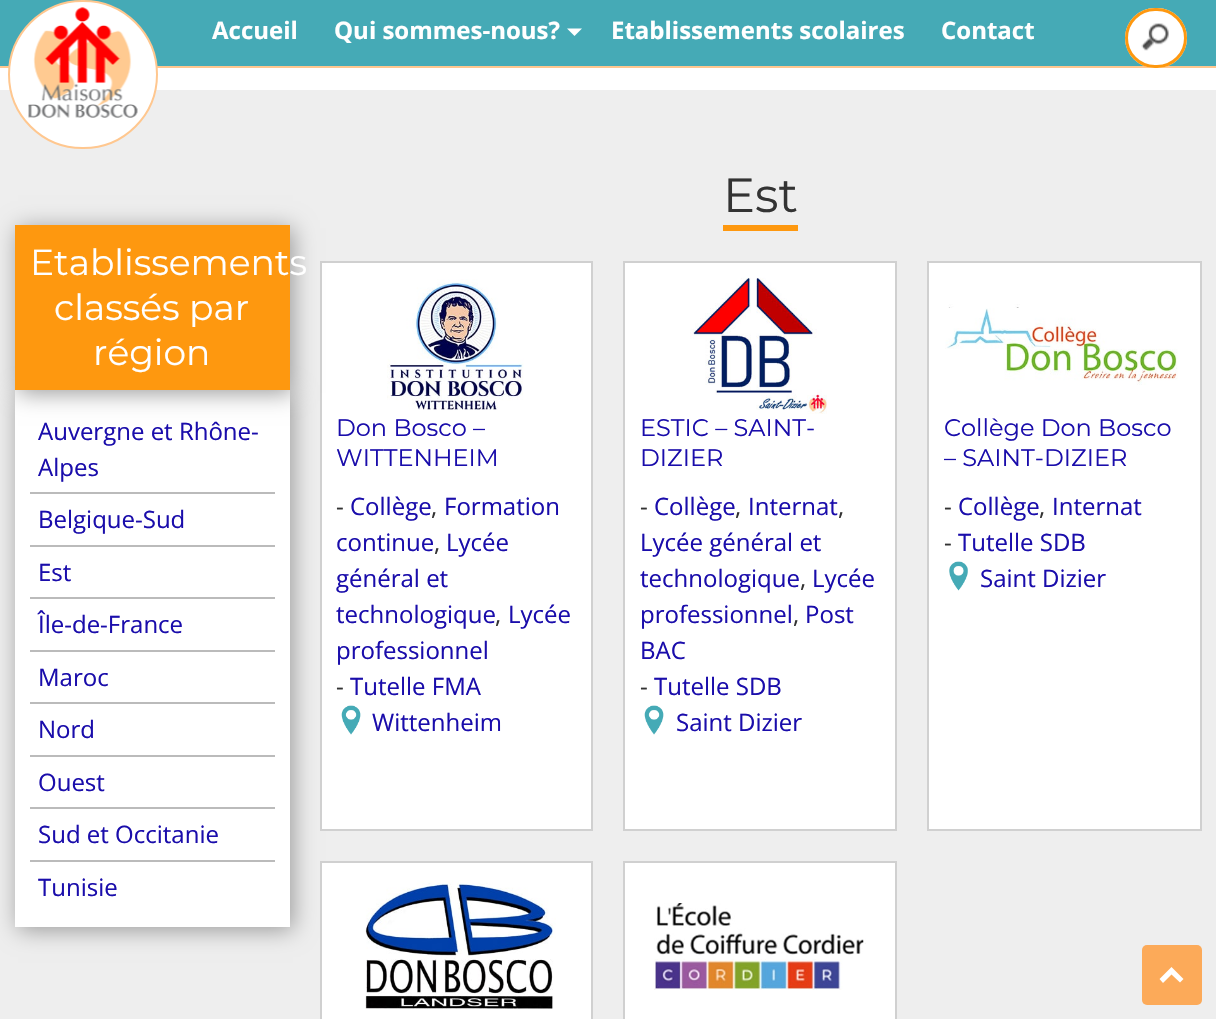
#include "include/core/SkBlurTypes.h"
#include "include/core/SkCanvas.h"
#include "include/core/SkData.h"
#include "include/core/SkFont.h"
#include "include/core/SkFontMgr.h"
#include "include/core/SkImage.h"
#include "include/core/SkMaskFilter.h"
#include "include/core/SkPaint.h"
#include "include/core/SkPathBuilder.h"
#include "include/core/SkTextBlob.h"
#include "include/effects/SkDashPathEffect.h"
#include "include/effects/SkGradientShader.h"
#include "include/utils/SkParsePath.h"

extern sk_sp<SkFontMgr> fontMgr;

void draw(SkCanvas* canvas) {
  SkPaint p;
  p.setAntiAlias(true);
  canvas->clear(SK_ColorWHITE);
  p.setColor(SkColorSetRGB(69, 170, 182));
  canvas->drawRect(SkRect::MakeLTRB(0, 0, 1216, 66), p);
  p.setColor(SkColorSetRGB(255, 199, 143));
  canvas->drawRect(SkRect::MakeLTRB(0, 66, 1216, 68), p);
  p.setColor(SkColorSetRGB(238, 238, 238));
  canvas->drawRect(SkRect::MakeLTRB(0, 90, 1216, 1019), p);
  p.setColor(SK_ColorWHITE);
  canvas->drawRoundRect(SkRect::MakeLTRB(9, 1, 157, 148), 73.5f, 73.5f, p);
  p.setStyle(SkPaint::kStroke_Style);
  p.setStrokeWidth(2);
  p.setColor(SkColorSetRGB(255, 199, 143));
  canvas->drawRoundRect(SkRect::MakeLTRB(9, 1, 157, 148), 73.5f, 73.5f, p);
  canvas->drawImageRect(SkImages::DeferredFromEncodedData(SkData::MakeFromFileName("images/1.png")), SkRect::MakeLTRB(28, 7, 138, 118), SkSamplingOptions());
  p.setStyle(SkPaint::kFill_Style);
  p.setColor(SK_ColorWHITE);
  canvas->drawPath(SkPathBuilder().moveTo(567, 28.5f).lineTo(582, 28.5f).lineTo(574.5f, 36).close().detach(), p);
  canvas->drawRoundRect(SkRect::MakeLTRB(1125, 8, 1187, 68), 30, 30, p);
  canvas->drawImageRect(SkImages::DeferredFromEncodedData(SkData::MakeFromFileName("images/2.png")), SkRect::MakeLTRB(1141, 23, 1169, 51), SkSamplingOptions());
  p.setStyle(SkPaint::kStroke_Style);
  p.setStrokeWidth(3);
  p.setColor(SkColorSetRGB(254, 152, 15));
  canvas->drawRoundRect(SkRect::MakeLTRB(1126.5f, 9.5f, 1185.5f, 66.5f), 28.5f, 28.5f, p);
  p.setStyle(SkPaint::kFill_Style);
  p.setColor(SkColorSetRGB(153, 153, 153));
  p.setMaskFilter(SkMaskFilter::MakeBlur(kNormal_SkBlurStyle, 11));
  canvas->drawRect(SkRect::MakeLTRB(18, 393, 293, 930), p);
  p.setMaskFilter(nullptr);
  p.setColor(SK_ColorWHITE);
  canvas->drawRect(SkRect::MakeLTRB(15, 390, 290, 927), p);
  canvas->drawRect(SkRect::MakeLTRB(321, 262, 592, 830), p);
  p.setStyle(SkPaint::kStroke_Style);
  p.setStrokeWidth(2);
  p.setColor(SkColorSetRGB(208, 208, 208));
  canvas->drawRect(SkRect::MakeLTRB(321, 262, 592, 830), p);
  p.setStyle(SkPaint::kFill_Style);
  p.setColor(SkColorSetRGB(153, 153, 153));
  p.setMaskFilter(SkMaskFilter::MakeBlur(kNormal_SkBlurStyle, 11));
  canvas->drawRect(SkRect::MakeLTRB(18, 228, 293, 393), p);
  p.setMaskFilter(nullptr);
  p.setColor(SkColorSetRGB(254, 152, 15));
  canvas->drawRect(SkRect::MakeLTRB(15, 225, 290, 390), p);
  p.setColor(SkColorSetRGB(187, 187, 187));
  canvas->drawRect(SkRect::MakeLTRB(30, 492, 275, 494), p);
  canvas->drawRect(SkRect::MakeLTRB(30, 545, 275, 547), p);
  canvas->drawRect(SkRect::MakeLTRB(30, 597, 275, 599), p);
  canvas->drawRect(SkRect::MakeLTRB(30, 650, 275, 652), p);
  canvas->drawRect(SkRect::MakeLTRB(30, 702, 275, 704), p);
  canvas->drawRect(SkRect::MakeLTRB(30, 755, 275, 757), p);
  canvas->drawRect(SkRect::MakeLTRB(30, 807, 275, 809), p);
  canvas->drawRect(SkRect::MakeLTRB(30, 860, 275, 862), p);
  p.setColor(SkColorSetRGB(254, 152, 15));
  canvas->drawRect(SkRect::MakeLTRB(723, 225, 798, 231), p);
  canvas->drawImageRect(SkImages::DeferredFromEncodedData(SkData::MakeFromFileName("images/3.png")), SkRect::MakeLTRB(387, 279, 524, 410), SkSamplingOptions());
  canvas->drawImageRect(SkImages::DeferredFromEncodedData(SkData::MakeFromFileName("images/4.png")), SkRect::MakeLTRB(341, 705, 361, 735), SkSamplingOptions());
  p.setColor(SK_ColorWHITE);
  canvas->drawRect(SkRect::MakeLTRB(624, 262, 896, 830), p);
  p.setStyle(SkPaint::kStroke_Style);
  p.setColor(SkColorSetRGB(208, 208, 208));
  canvas->drawRect(SkRect::MakeLTRB(624, 262, 896, 830), p);
  canvas->drawImageRect(SkImages::DeferredFromEncodedData(SkData::MakeFromFileName("images/5.png")), SkRect::MakeLTRB(690, 277, 827, 414), SkSamplingOptions());
  canvas->drawImageRect(SkImages::DeferredFromEncodedData(SkData::MakeFromFileName("images/6.png")), SkRect::MakeLTRB(644, 705, 664, 735), SkSamplingOptions());
  p.setStyle(SkPaint::kFill_Style);
  p.setColor(SK_ColorWHITE);
  canvas->drawRect(SkRect::MakeLTRB(928, 262, 1201, 830), p);
  p.setStyle(SkPaint::kStroke_Style);
  p.setColor(SkColorSetRGB(208, 208, 208));
  canvas->drawRect(SkRect::MakeLTRB(928, 262, 1201, 830), p);
  canvas->drawImageRect(SkImages::DeferredFromEncodedData(SkData::MakeFromFileName("images/7.png")), SkRect::MakeLTRB(945, 304, 1178, 385), SkSamplingOptions());
  canvas->drawImageRect(SkImages::DeferredFromEncodedData(SkData::MakeFromFileName("images/8.png")), SkRect::MakeLTRB(949, 561, 968, 591), SkSamplingOptions());
  p.setStyle(SkPaint::kFill_Style);
  p.setColor(SK_ColorWHITE);
  canvas->drawRect(SkRect::MakeLTRB(321, 862, 592, 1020), p);
  p.setStyle(SkPaint::kStroke_Style);
  p.setColor(SkColorSetRGB(208, 208, 208));
  canvas->drawRect(SkRect::MakeLTRB(321, 862, 592, 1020), p);
  canvas->drawImageRect(SkImages::DeferredFromEncodedData(SkData::MakeFromFileName("images/9.png")), SkRect::MakeLTRB(365, 880, 556, 1009), SkSamplingOptions());
  p.setStyle(SkPaint::kFill_Style);
  p.setColor(SK_ColorWHITE);
  canvas->drawRect(SkRect::MakeLTRB(624, 862, 896, 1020), p);
  p.setStyle(SkPaint::kStroke_Style);
  p.setColor(SkColorSetRGB(208, 208, 208));
  canvas->drawRect(SkRect::MakeLTRB(624, 862, 896, 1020), p);
  canvas->drawImageRect(SkImages::DeferredFromEncodedData(SkData::MakeFromFileName("images/10.png")), SkRect::MakeLTRB(653, 903, 866, 990), SkSamplingOptions());
  p.setStyle(SkPaint::kFill_Style);
  p.setColor(SkColorSetARGB(204, 255, 153, 51));
  canvas->drawRoundRect(SkRect::MakeLTRB(1142, 945, 1202, 1005), 5, 5, p);
  p.setColor(SK_ColorWHITE);
  canvas->drawPath(SkPathBuilder().moveTo(1171.5f, 967).lineTo(1183.5f, 979).lineTo(1180, 982.5f).lineTo(1171.5f, 974.5f).lineTo(1163, 983).lineTo(1159.5f, 979).close().detach(), p);
  SkFont font1(fontMgr->matchFamilyStyle("Open Sans", SkFontStyle::Bold()), 24);
  font1.setSubpixel(true);
  canvas->drawString("Accueil", 212, 39, font1, p);
  canvas->drawString("Qui sommes-nous?", 334, 39, font1, p);
  canvas->drawString("Etablissements scolaires", 611, 39, font1, p);
  canvas->drawString("Contact", 941, 39, font1, p);
  SkFont font2(fontMgr->matchFamilyStyle("Montserrat", SkFontStyle::Normal()), 36);
  font2.setSubpixel(true);
  canvas->drawString("Etablissements", 30, 275, font2, p);
  canvas->drawString("classés par", 54, 320, font2, p);
  canvas->drawString("région", 93, 365, font2, p);
  SkFont font3(fontMgr->matchFamilyStyle("Open Sans", SkFontStyle::Normal()), 24);
  font3.setSubpixel(true);
  p.setColor(SkColorSetRGB(26, 13, 171));
  canvas->drawString("Auvergne et Rhône-", 38, 440, font3, p);
  canvas->drawString("Alpes", 38, 476, font3, p);
  canvas->drawString("Belgique-Sud", 38, 528, font3, p);
  canvas->drawString("Est", 38, 581, font3, p);
  canvas->drawString("Île-de-France", 38, 633, font3, p);
  canvas->drawString("Maroc", 38, 686, font3, p);
  canvas->drawString("Nord", 38, 738, font3, p);
  canvas->drawString("Ouest", 38, 791, font3, p);
  canvas->drawString("Sud et Occitanie", 38, 843, font3, p);
  canvas->drawString("Tunisie", 38, 896, font3, p);
  SkFont font4(fontMgr->matchFamilyStyle("Montserrat", SkFontStyle::Normal()), 48);
  font4.setSubpixel(true);
  p.setColor(SkColorSetRGB(51, 51, 51));
  canvas->drawString("Est", 723, 212, font4, p);
  SkFont font5(fontMgr->matchFamilyStyle("Montserrat", SkFontStyle::Normal()), 24);
  font5.setSubpixel(true);
  p.setColor(SkColorSetRGB(26, 13, 171));
  canvas->drawString("Don Bosco –", 336, 436, font5, p);
  canvas->drawString("WITTENHEIM", 336, 466, font5, p);
  p.setColor(SkColorSetRGB(51, 51, 51));
  canvas->drawString("-", 336, 515, font3, p);
  p.setColor(SkColorSetRGB(26, 13, 171));
  canvas->drawString("Collège", 350, 515, font3, p);
  canvas->drawString("Formation", 444, 515, font3, p);
  p.setColor(SkColorSetRGB(51, 51, 51));
  canvas->drawString(",", 431, 515, font3, p);
  p.setColor(SkColorSetRGB(26, 13, 171));
  canvas->drawString("continue", 336, 551, font3, p);
  p.setColor(SkColorSetRGB(51, 51, 51));
  canvas->drawString(",", 434, 551, font3, p);
  p.setColor(SkColorSetRGB(26, 13, 171));
  canvas->drawString("Lycée", 446, 551, font3, p);
  canvas->drawString("général et", 336, 587, font3, p);
  canvas->drawString("technologique", 336, 623, font3, p);
  p.setColor(SkColorSetRGB(51, 51, 51));
  canvas->drawString(",", 495, 623, font3, p);
  p.setColor(SkColorSetRGB(26, 13, 171));
  canvas->drawString("Lycée", 508, 623, font3, p);
  canvas->drawString("professionnel", 336, 659, font3, p);
  p.setColor(SkColorSetRGB(51, 51, 51));
  canvas->drawString("-", 336, 695, font3, p);
  p.setColor(SkColorSetRGB(26, 13, 171));
  canvas->drawString("Tutelle FMA", 350, 695, font3, p);
  canvas->drawString("Wittenheim", 372, 731, font3, p);
  canvas->drawString("ESTIC – SAINT-", 640, 436, font5, p);
  canvas->drawString("DIZIER", 640, 466, font5, p);
  p.setColor(SkColorSetRGB(51, 51, 51));
  canvas->drawString("-", 640, 515, font3, p);
  p.setColor(SkColorSetRGB(26, 13, 171));
  canvas->drawString("Collège", 654, 515, font3, p);
  canvas->drawString("Internat", 748, 515, font3, p);
  p.setColor(SkColorSetRGB(51, 51, 51));
  canvas->drawString(",", 735, 515, font3, p);
  canvas->drawString(",", 838, 515, font3, p);
  p.setColor(SkColorSetRGB(26, 13, 171));
  canvas->drawString("Lycée général et", 640, 551, font3, p);
  canvas->drawString("technologique", 640, 587, font3, p);
  p.setColor(SkColorSetRGB(51, 51, 51));
  canvas->drawString(",", 800, 587, font3, p);
  p.setColor(SkColorSetRGB(26, 13, 171));
  canvas->drawString("Lycée", 812, 587, font3, p);
  canvas->drawString("professionnel", 640, 623, font3, p);
  p.setColor(SkColorSetRGB(51, 51, 51));
  canvas->drawString(",", 793, 623, font3, p);
  p.setColor(SkColorSetRGB(26, 13, 171));
  canvas->drawString("Post", 805, 623, font3, p);
  canvas->drawString("BAC", 640, 659, font3, p);
  p.setColor(SkColorSetRGB(51, 51, 51));
  canvas->drawString("-", 640, 695, font3, p);
  p.setColor(SkColorSetRGB(26, 13, 171));
  canvas->drawString("Tutelle SDB", 654, 695, font3, p);
  canvas->drawString("Saint Dizier", 676, 731, font3, p);
  canvas->drawString("Collège Don Bosco", 944, 436, font5, p);
  canvas->drawString("– SAINT-DIZIER", 944, 466, font5, p);
  p.setColor(SkColorSetRGB(51, 51, 51));
  canvas->drawString("-", 944, 515, font3, p);
  p.setColor(SkColorSetRGB(26, 13, 171));
  canvas->drawString("Collège", 958, 515, font3, p);
  canvas->drawString("Internat", 1052, 515, font3, p);
  p.setColor(SkColorSetRGB(51, 51, 51));
  canvas->drawString(",", 1039, 515, font3, p);
  canvas->drawString("-", 944, 551, font3, p);
  p.setColor(SkColorSetRGB(26, 13, 171));
  canvas->drawString("Tutelle SDB", 958, 551, font3, p);
  canvas->drawString("Saint Dizier", 980, 587, font3, p);
}
